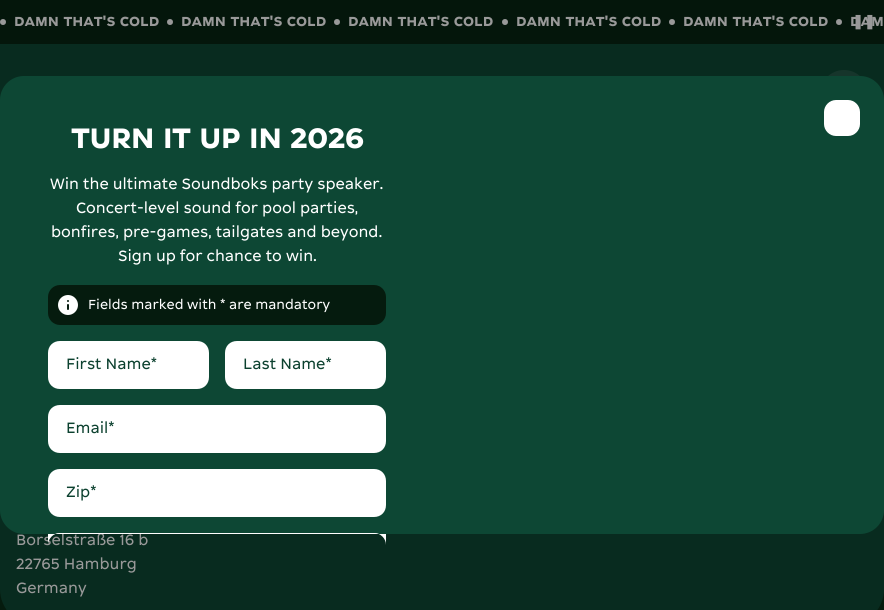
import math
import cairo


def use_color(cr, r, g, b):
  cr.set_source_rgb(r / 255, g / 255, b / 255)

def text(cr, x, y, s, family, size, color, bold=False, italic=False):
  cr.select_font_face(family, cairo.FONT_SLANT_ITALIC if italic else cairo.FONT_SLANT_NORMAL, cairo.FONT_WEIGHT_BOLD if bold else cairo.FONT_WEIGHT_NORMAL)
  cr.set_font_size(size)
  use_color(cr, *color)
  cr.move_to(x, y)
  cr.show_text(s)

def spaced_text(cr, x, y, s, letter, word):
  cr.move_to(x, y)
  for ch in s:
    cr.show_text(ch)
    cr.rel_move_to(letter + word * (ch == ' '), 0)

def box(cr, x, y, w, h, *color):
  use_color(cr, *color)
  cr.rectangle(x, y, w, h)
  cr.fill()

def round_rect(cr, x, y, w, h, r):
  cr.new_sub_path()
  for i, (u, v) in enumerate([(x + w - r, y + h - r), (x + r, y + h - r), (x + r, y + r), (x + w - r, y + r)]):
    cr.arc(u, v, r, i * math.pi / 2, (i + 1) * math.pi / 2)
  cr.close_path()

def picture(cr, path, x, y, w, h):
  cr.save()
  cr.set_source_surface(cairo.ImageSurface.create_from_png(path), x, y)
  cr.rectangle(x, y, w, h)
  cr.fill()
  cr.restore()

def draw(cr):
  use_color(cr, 8, 43, 31)
  cr.paint()
  box(cr, 0, 589, 884, 21, 5, 27, 14)
  box(cr, 0, 0, 884, 44, 4, 22, 11)
  use_color(cr, 153, 153, 153)
  cr.arc(3, 22, 3, 0, 2 * math.pi)
  cr.fill()
  cr.arc(170, 22, 3, 0, 2 * math.pi)
  cr.fill()
  cr.arc(337, 22, 3, 0, 2 * math.pi)
  cr.fill()
  cr.arc(505, 22, 3, 0, 2 * math.pi)
  cr.fill()
  cr.arc(672, 22, 3, 0, 2 * math.pi)
  cr.fill()
  cr.arc(839, 22, 3, 0, 2 * math.pi)
  cr.fill()
  use_color(cr, 22, 53, 43)
  cr.arc(844, 94, 24, 0, 2 * math.pi)
  cr.fill()
  use_color(cr, 8, 43, 31)
  cr.new_path()
  cr.move_to(0, 144)
  cr.line_to(884, 144)
  cr.line_to(884, 589)
  cr.curve_to(884, 609, 868, 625, 848, 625)
  cr.line_to(36, 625)
  cr.curve_to(16, 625, 0, 609, 0, 589)
  cr.close_path()
  cr.fill()
  text(cr, 14, 26, "DAMN THAT'S COLD", "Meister", 14, (153, 153, 153), bold=True)
  text(cr, 181, 26, "DAMN THAT'S COLD", "Meister", 14, (153, 153, 153), bold=True)
  text(cr, 348, 26, "DAMN THAT'S COLD", "Meister", 14, (153, 153, 153), bold=True)
  text(cr, 516, 26, "DAMN THAT'S COLD", "Meister", 14, (153, 153, 153), bold=True)
  text(cr, 683, 26, "DAMN THAT'S COLD", "Meister", 14, (153, 153, 153), bold=True)
  text(cr, 850, 26, "DAM", "Meister", 14, (153, 153, 153), bold=True)
  text(cr, 852, 26, "❚❚", "DejaVu Sans", 14, (153, 153, 153), bold=True)
  text(cr, 16, 545, "Borselstraße 16 b", "Meister", 16, (153, 153, 153))
  use_color(cr, 13, 71, 52)
  round_rect(cr, 0, 76, 884, 458, 24)
  cr.fill()
  use_color(cr, 255, 255, 255)
  cr.new_path()
  cr.move_to(60, 533)
  cr.line_to(374, 533)
  cr.curve_to(380.5, 533, 386, 538.5, 386, 545)
  cr.line_to(386, 534)
  cr.line_to(48, 534)
  cr.line_to(48, 545)
  cr.curve_to(48, 538.5, 53.5, 533, 60, 533)
  cr.close_path()
  cr.fill()
  cr.new_path()
  cr.move_to(60, 533)
  cr.line_to(55, 534)
  cr.line_to(379, 534)
  cr.line_to(374, 533)
  cr.close_path()
  cr.fill()
  cr.new_path()
  cr.move_to(60, 469)
  cr.line_to(374, 469)
  cr.curve_to(381, 469, 386, 474, 386, 481)
  cr.line_to(386, 505)
  cr.curve_to(386, 512, 381, 517, 374, 517)
  cr.line_to(60, 517)
  cr.curve_to(53, 517, 48, 512, 48, 505)
  cr.line_to(48, 481)
  cr.curve_to(48, 474, 53, 469, 60, 469)
  cr.close_path()
  cr.fill()
  text(cr, 66, 497, "Zip*", "Meister", 16, (12, 65, 47))
  use_color(cr, 255, 255, 255)
  cr.new_path()
  cr.move_to(60, 405)
  cr.line_to(374, 405)
  cr.curve_to(381, 405, 386, 410, 386, 417)
  cr.line_to(386, 441)
  cr.curve_to(386, 448, 381, 453, 374, 453)
  cr.line_to(60, 453)
  cr.curve_to(53, 453, 48, 448, 48, 441)
  cr.line_to(48, 417)
  cr.curve_to(48, 410, 53, 405, 60, 405)
  cr.close_path()
  cr.fill()
  text(cr, 66, 433, "Email*", "Meister", 16, (12, 65, 47))
  use_color(cr, 255, 255, 255)
  cr.new_path()
  cr.move_to(237, 341)
  cr.line_to(374, 341)
  cr.curve_to(381, 341, 386, 346, 386, 353)
  cr.line_to(386, 377)
  cr.curve_to(386, 384, 381, 389, 374, 389)
  cr.line_to(237, 389)
  cr.curve_to(230, 389, 225, 384, 225, 377)
  cr.line_to(225, 353)
  cr.curve_to(225, 346, 230, 341, 237, 341)
  cr.close_path()
  cr.fill()
  text(cr, 243, 369, "Last Name*", "Meister", 16, (12, 65, 47))
  use_color(cr, 255, 255, 255)
  cr.new_path()
  cr.move_to(60, 341)
  cr.line_to(197, 341)
  cr.curve_to(204, 341, 209, 346, 209, 353)
  cr.line_to(209, 377)
  cr.curve_to(209, 384, 204, 389, 197, 389)
  cr.line_to(60, 389)
  cr.curve_to(53, 389, 48, 384, 48, 377)
  cr.line_to(48, 353)
  cr.curve_to(48, 346, 53, 341, 60, 341)
  cr.close_path()
  cr.fill()
  text(cr, 66, 369, "First Name*", "Meister", 16, (12, 65, 47))
  use_color(cr, 5, 27, 14)
  round_rect(cr, 48, 285, 338, 40, 12)
  cr.fill()
  picture(cr, "img_01.png", 58, 295, 20, 20)
  text(cr, 88, 309, "Fields marked with * are mandatory", "Meister", 14, (255, 255, 255))
  text(cr, 118, 261, "Sign up for chance to win.", "Meister", 16, (255, 255, 255))
  text(cr, 51, 237, "bonfires, pre-games, tailgates and beyond.", "Meister", 16, (255, 255, 255))
  text(cr, 76, 213, "Concert-level sound for pool parties,", "Meister", 16, (255, 255, 255))
  text(cr, 50, 189, "Win the ultimate Soundboks party speaker.", "Meister", 16, (255, 255, 255))
  cr.select_font_face("Meister", cairo.FONT_SLANT_NORMAL, cairo.FONT_WEIGHT_BOLD)
  cr.set_font_size(30)
  spaced_text(cr, 71, 148, "TURN IT UP IN 2026", -0.75, 0)
  cr.new_path()
  cr.move_to(836, 100)
  cr.line_to(848, 100)
  cr.curve_to(854.5, 100, 860, 105.5, 860, 112)
  cr.line_to(860, 124)
  cr.curve_to(860, 130.5, 854.5, 136, 848, 136)
  cr.line_to(836, 136)
  cr.curve_to(829.5, 136, 824, 130.5, 824, 124)
  cr.line_to(824, 112)
  cr.curve_to(824, 105.5, 829.5, 100, 836, 100)
  cr.close_path()
  cr.fill()
  text(cr, 16, 569, "22765 Hamburg", "Meister", 16, (153, 153, 153))
  text(cr, 16, 593, "Germany", "Meister", 16, (153, 153, 153))


surface = cairo.ImageSurface(cairo.FORMAT_RGB24, 884, 610)
cr = cairo.Context(surface)
options = cairo.FontOptions()
options.set_hint_metrics(cairo.HINT_METRICS_OFF)
options.set_hint_style(cairo.HINT_STYLE_NONE)
cr.set_font_options(options)
cr.set_miter_limit(4)
draw(cr)
surface.write_to_png("out.png")
